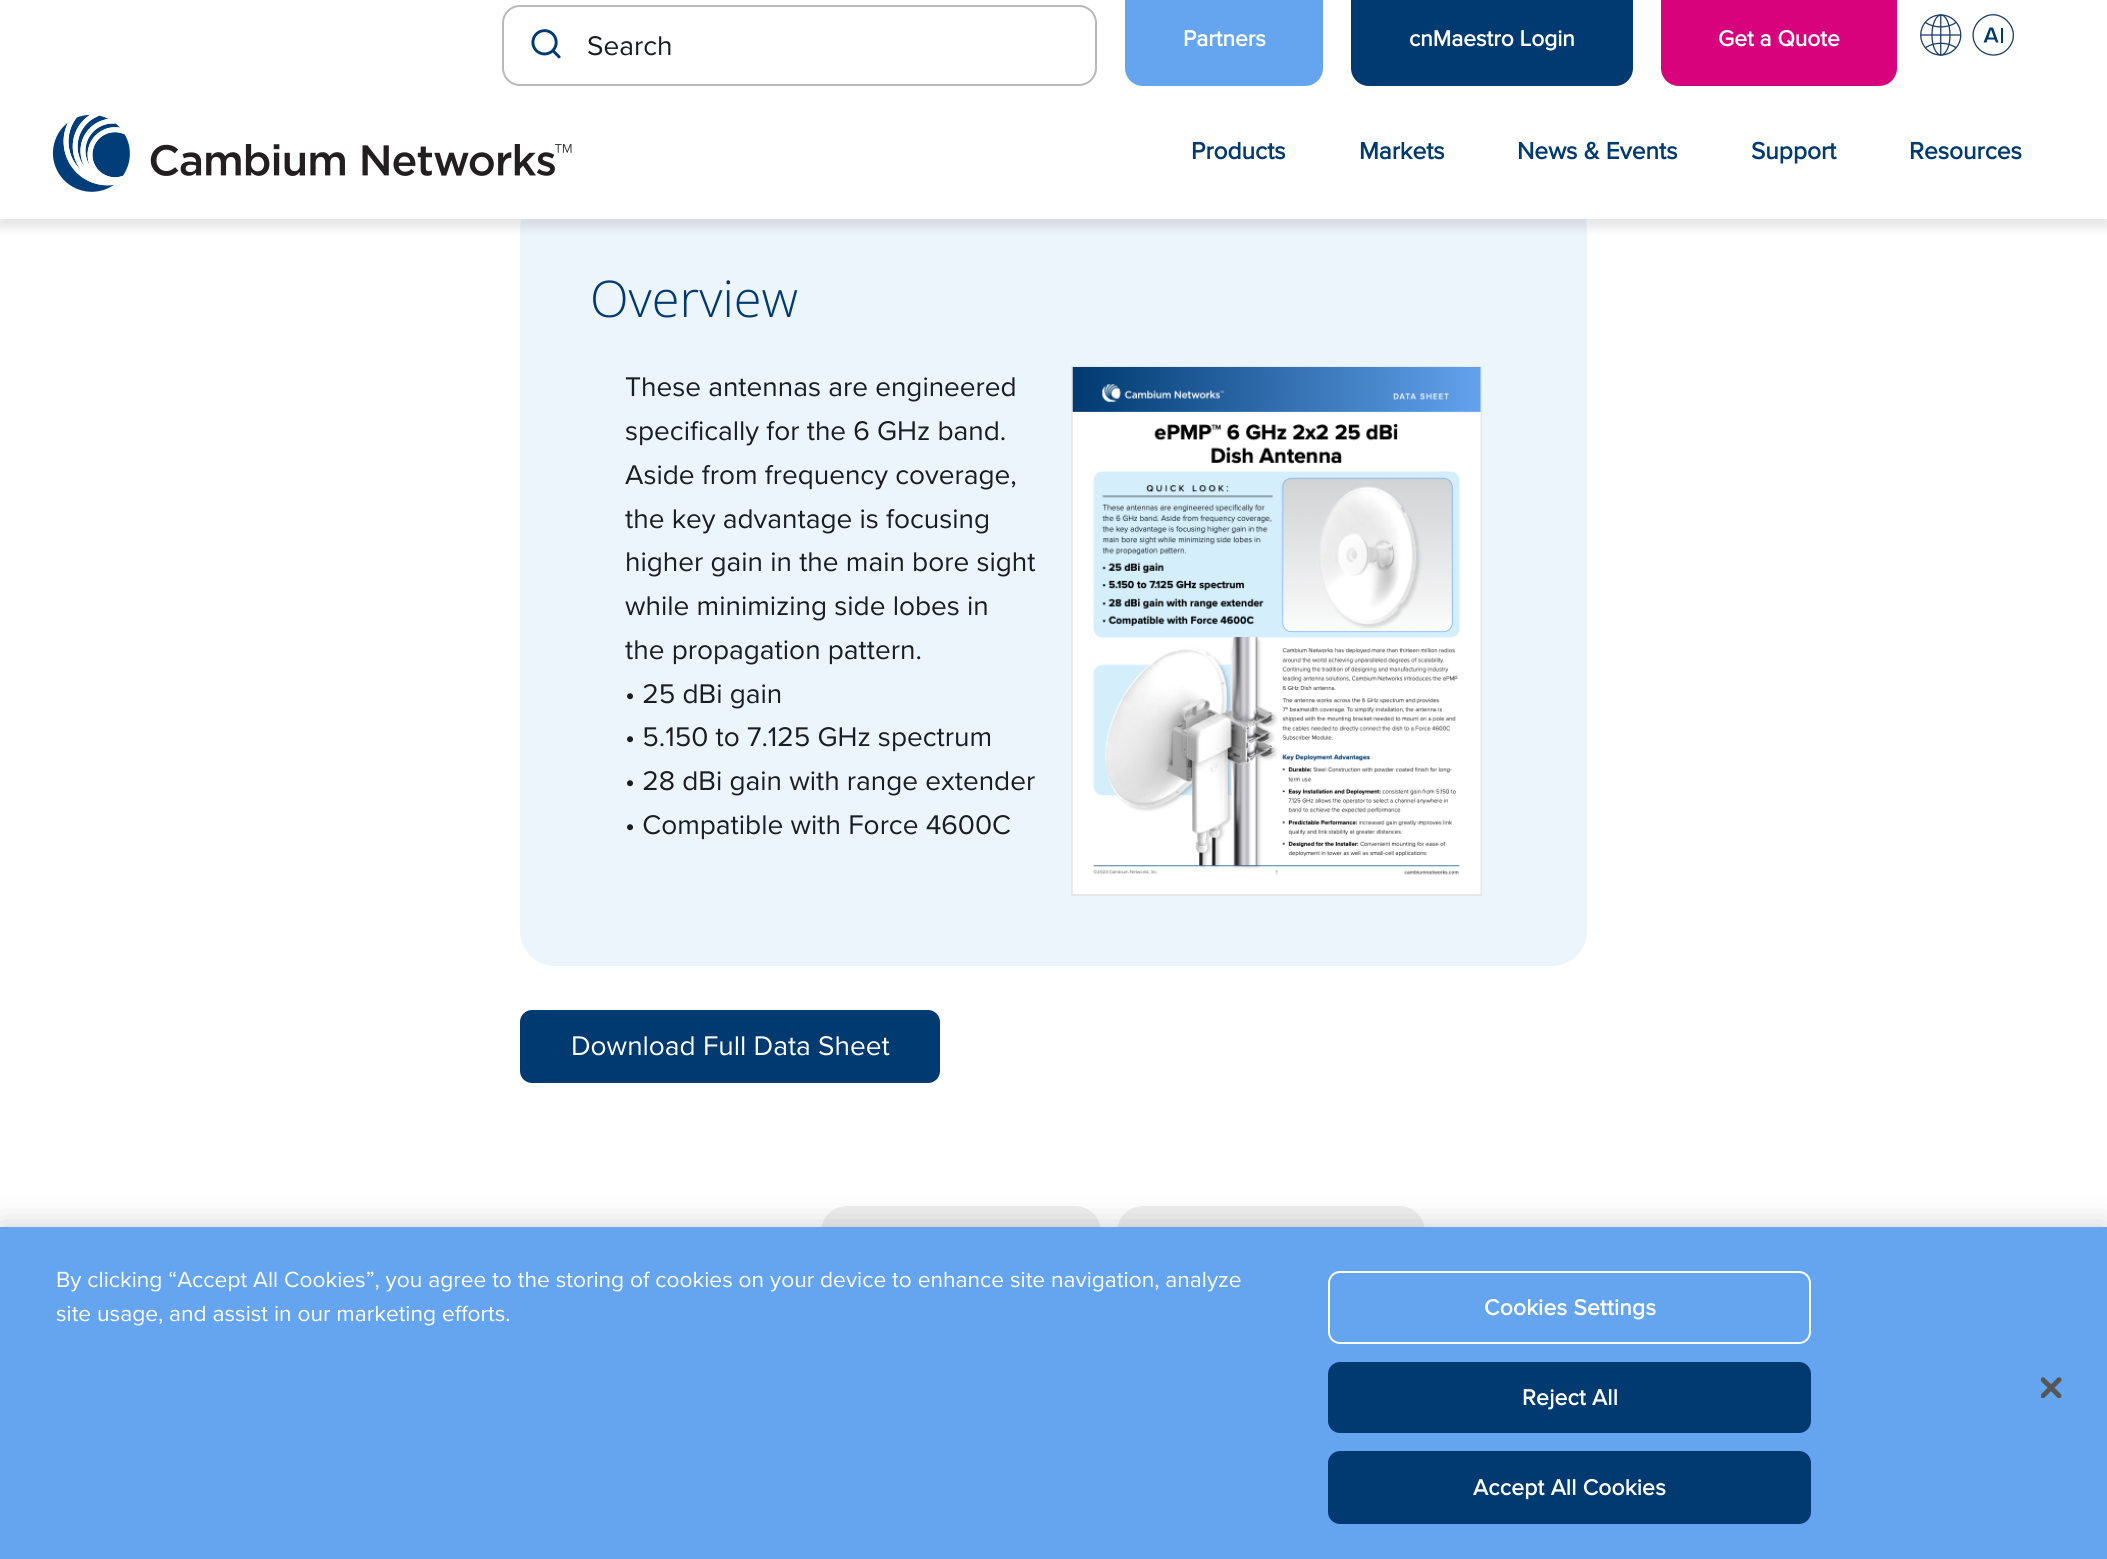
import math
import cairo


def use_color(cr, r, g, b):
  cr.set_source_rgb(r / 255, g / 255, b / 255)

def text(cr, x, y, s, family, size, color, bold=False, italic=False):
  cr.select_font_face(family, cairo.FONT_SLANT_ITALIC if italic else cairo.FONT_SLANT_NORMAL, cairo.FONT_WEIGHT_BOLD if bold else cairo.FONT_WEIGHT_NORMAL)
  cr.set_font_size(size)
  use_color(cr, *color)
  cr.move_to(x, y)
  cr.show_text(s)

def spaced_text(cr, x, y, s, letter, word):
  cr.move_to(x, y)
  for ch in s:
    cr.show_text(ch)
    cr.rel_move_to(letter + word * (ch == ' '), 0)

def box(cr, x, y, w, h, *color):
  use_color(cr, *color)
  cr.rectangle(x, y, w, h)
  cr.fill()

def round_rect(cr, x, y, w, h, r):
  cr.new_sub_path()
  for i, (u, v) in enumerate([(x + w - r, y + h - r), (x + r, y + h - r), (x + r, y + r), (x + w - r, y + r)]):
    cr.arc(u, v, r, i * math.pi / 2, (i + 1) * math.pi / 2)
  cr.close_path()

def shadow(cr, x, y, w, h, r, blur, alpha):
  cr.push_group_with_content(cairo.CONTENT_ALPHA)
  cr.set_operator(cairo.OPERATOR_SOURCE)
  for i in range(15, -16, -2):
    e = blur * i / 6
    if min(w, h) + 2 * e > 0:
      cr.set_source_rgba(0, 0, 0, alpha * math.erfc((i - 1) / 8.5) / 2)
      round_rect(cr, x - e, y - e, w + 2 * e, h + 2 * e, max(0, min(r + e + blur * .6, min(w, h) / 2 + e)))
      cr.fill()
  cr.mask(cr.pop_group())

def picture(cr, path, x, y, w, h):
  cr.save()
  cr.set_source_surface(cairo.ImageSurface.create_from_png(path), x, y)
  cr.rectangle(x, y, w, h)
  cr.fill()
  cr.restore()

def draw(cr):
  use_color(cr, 255, 255, 255)
  cr.paint()
  use_color(cr, 236, 244, 252)
  round_rect(cr, 520, 194, 1067, 772, 35)
  cr.fill()
  use_color(cr, 0, 0, 0)
  shadow(cr, -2, 5, 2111, 223, 0, 5, 0.1)
  box(cr, 0, 0, 2107, 219, 255, 255, 255)
  round_rect(cr, 503, 6, 593, 79, 17)
  use_color(cr, 185, 185, 185)
  cr.stroke()
  picture(cr, "img_01.png", 531, 29, 30, 30)
  use_color(cr, 101, 164, 239)
  cr.new_path()
  cr.move_to(1125, 0)
  cr.line_to(1323, 0)
  cr.line_to(1323, 68)
  cr.curve_to(1323, 78, 1315, 86, 1305, 86)
  cr.line_to(1143, 86)
  cr.curve_to(1133, 86, 1125, 78, 1125, 68)
  cr.close_path()
  cr.fill()
  use_color(cr, 0, 58, 112)
  cr.new_path()
  cr.move_to(1351, 0)
  cr.line_to(1633, 0)
  cr.line_to(1633, 68)
  cr.curve_to(1633, 78, 1625, 86, 1615, 86)
  cr.line_to(1369, 86)
  cr.curve_to(1359, 86, 1351, 78, 1351, 68)
  cr.close_path()
  cr.fill()
  use_color(cr, 217, 2, 125)
  cr.new_path()
  cr.move_to(1661, 0)
  cr.line_to(1897, 0)
  cr.line_to(1897, 68)
  cr.curve_to(1897, 78, 1889, 86, 1879, 86)
  cr.line_to(1679, 86)
  cr.curve_to(1669, 86, 1661, 78, 1661, 68)
  cr.close_path()
  cr.fill()
  picture(cr, "img_02.png", 1920, 14, 42, 42)
  cr.new_path()
  cr.move_to(2008.5, 48)
  cr.curve_to(1995.5, 63.5, 1969.5, 51.5, 1973.5, 31)
  cr.curve_to(1974.5, 27, 1976.5, 23.5, 1979, 21)
  cr.curve_to(1997.5, 2.5, 2024.5, 29, 2008.5, 48)
  use_color(cr, 28, 61, 110)
  cr.set_line_width(1.3)
  cr.stroke()
  use_color(cr, 0, 58, 112)
  cr.new_path()
  cr.move_to(1996, 42.5)
  cr.line_to(1994.5, 39.5)
  cr.line_to(1987.5, 39.5)
  cr.line_to(1986.5, 42.5)
  cr.line_to(1983.5, 42.5)
  cr.line_to(1989.5, 27.5)
  cr.line_to(1993, 27.5)
  cr.line_to(1998.5, 42.5)
  cr.close_path()
  cr.move_to(1991, 29.5)
  cr.line_to(1988.5, 37.5)
  cr.line_to(1994, 37.5)
  cr.close_path()
  cr.fill()
  box(cr, 2001, 28, 2, 15, 0, 58, 112)
  picture(cr, "img_03.png", 52, 114, 520, 78)
  cr.rectangle(1072, 367, 409, 528)
  use_color(cr, 231, 231, 231)
  cr.set_line_width(2)
  cr.stroke()
  picture(cr, "img_04.png", 1072, 367, 409, 527)
  use_color(cr, 0, 58, 112)
  round_rect(cr, 520, 1010, 420, 73, 12)
  cr.fill()
  use_color(cr, 238, 238, 238)
  round_rect(cr, 821, 1206, 280, 52, 26)
  cr.fill()
  round_rect(cr, 1117, 1206, 308, 52, 26)
  cr.fill()
  use_color(cr, 0, 0, 0)
  shadow(cr, 0, 1227, 2107, 332, 0, 16, 0.2)
  box(cr, 0, 1227, 2107, 332, 101, 164, 239)
  round_rect(cr, 1329, 1272, 481, 71, 11)
  use_color(cr, 255, 255, 255)
  cr.stroke()
  use_color(cr, 0, 58, 112)
  round_rect(cr, 1329, 1363, 481, 69, 11)
  cr.fill_preserve()
  cr.stroke()
  round_rect(cr, 1329, 1452, 481, 71, 11)
  cr.fill_preserve()
  cr.stroke()
  picture(cr, "img_05.png", 2041, 1377, 21, 21)
  text(cr, 587, 55, "Search", "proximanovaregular", 28, (27, 30, 33))
  text(cr, 1183, 46, "Partners", "proximanovaregular", 22.75, (255, 255, 255), bold=True)
  text(cr, 1409, 46, "cnMaestro Login", "proximanovaregular", 22.75, (255, 255, 255), bold=True)
  text(cr, 1718, 46, "Get a Quote", "proximanovaregular", 22.75, (255, 255, 255), bold=True)
  text(cr, 1191, 159, "Products", "proximanovaregular", 24.5, (0, 58, 112), bold=True)
  text(cr, 1359, 159, "Markets", "proximanovaregular", 24.5, (0, 58, 112), bold=True)
  text(cr, 1517, 159, "News & Events", "proximanovaregular", 24.5, (0, 58, 112), bold=True)
  text(cr, 1751, 159, "Support", "proximanovaregular", 24.5, (0, 58, 112), bold=True)
  text(cr, 1909, 159, "Resources", "proximanovaregular", 24.5, (0, 58, 112), bold=True)
  text(cr, 590, 317, "Overview", "Open Sans Light", 50.5, (0, 58, 112))
  text(cr, 625, 396, "These antennas are engineered", "proximanovaregular", 28, (27, 30, 33))
  text(cr, 625, 440, "specifically for the 6 GHz band.", "proximanovaregular", 28, (27, 30, 33))
  text(cr, 625, 484, "Aside from frequency coverage,", "proximanovaregular", 28, (27, 30, 33))
  text(cr, 625, 528, "the key advantage is focusing", "proximanovaregular", 28, (27, 30, 33))
  text(cr, 625, 571, "higher gain in the main bore sight", "proximanovaregular", 28, (27, 30, 33))
  text(cr, 625, 615, "while minimizing side lobes in", "proximanovaregular", 28, (27, 30, 33))
  text(cr, 625, 659, "the propagation pattern.", "proximanovaregular", 28, (27, 30, 33))
  text(cr, 625, 703, "• 25 dBi gain", "proximanovaregular", 28, (27, 30, 33))
  text(cr, 625, 746, "• 5.150 to 7.125 GHz spectrum", "proximanovaregular", 28, (27, 30, 33))
  text(cr, 625, 790, "• 28 dBi gain with range extender", "proximanovaregular", 28, (27, 30, 33))
  text(cr, 625, 834, "• Compatible with Force 4600C", "proximanovaregular", 28, (27, 30, 33))
  text(cr, 571, 1055, "Download Full Data Sheet", "proximanovaregular", 28, (255, 255, 255))
  text(cr, 56, 1287, "By clicking “Accept All Cookies”, you agree to the storing of cookies on your device to enhance site navigation, analyze", "proximanovaregular", 22.75, (255, 255, 255))
  text(cr, 56, 1321, "site usage, and assist in our marketing efforts.", "proximanovaregular", 22.75, (255, 255, 255))
  cr.select_font_face("proximanovaregular", cairo.FONT_SLANT_NORMAL, cairo.FONT_WEIGHT_BOLD)
  spaced_text(cr, 1484, 1315, "Cookies Settings", 0.25, 0)
  spaced_text(cr, 1522, 1405, "Reject All", 0.25, 0)
  spaced_text(cr, 1473, 1495, "Accept All Cookies", 0.25, 0)


surface = cairo.ImageSurface(cairo.FORMAT_RGB24, 2107, 1559)
cr = cairo.Context(surface)
options = cairo.FontOptions()
options.set_hint_metrics(cairo.HINT_METRICS_OFF)
options.set_hint_style(cairo.HINT_STYLE_NONE)
cr.set_font_options(options)
cr.set_miter_limit(4)
draw(cr)
surface.write_to_png("out.png")
